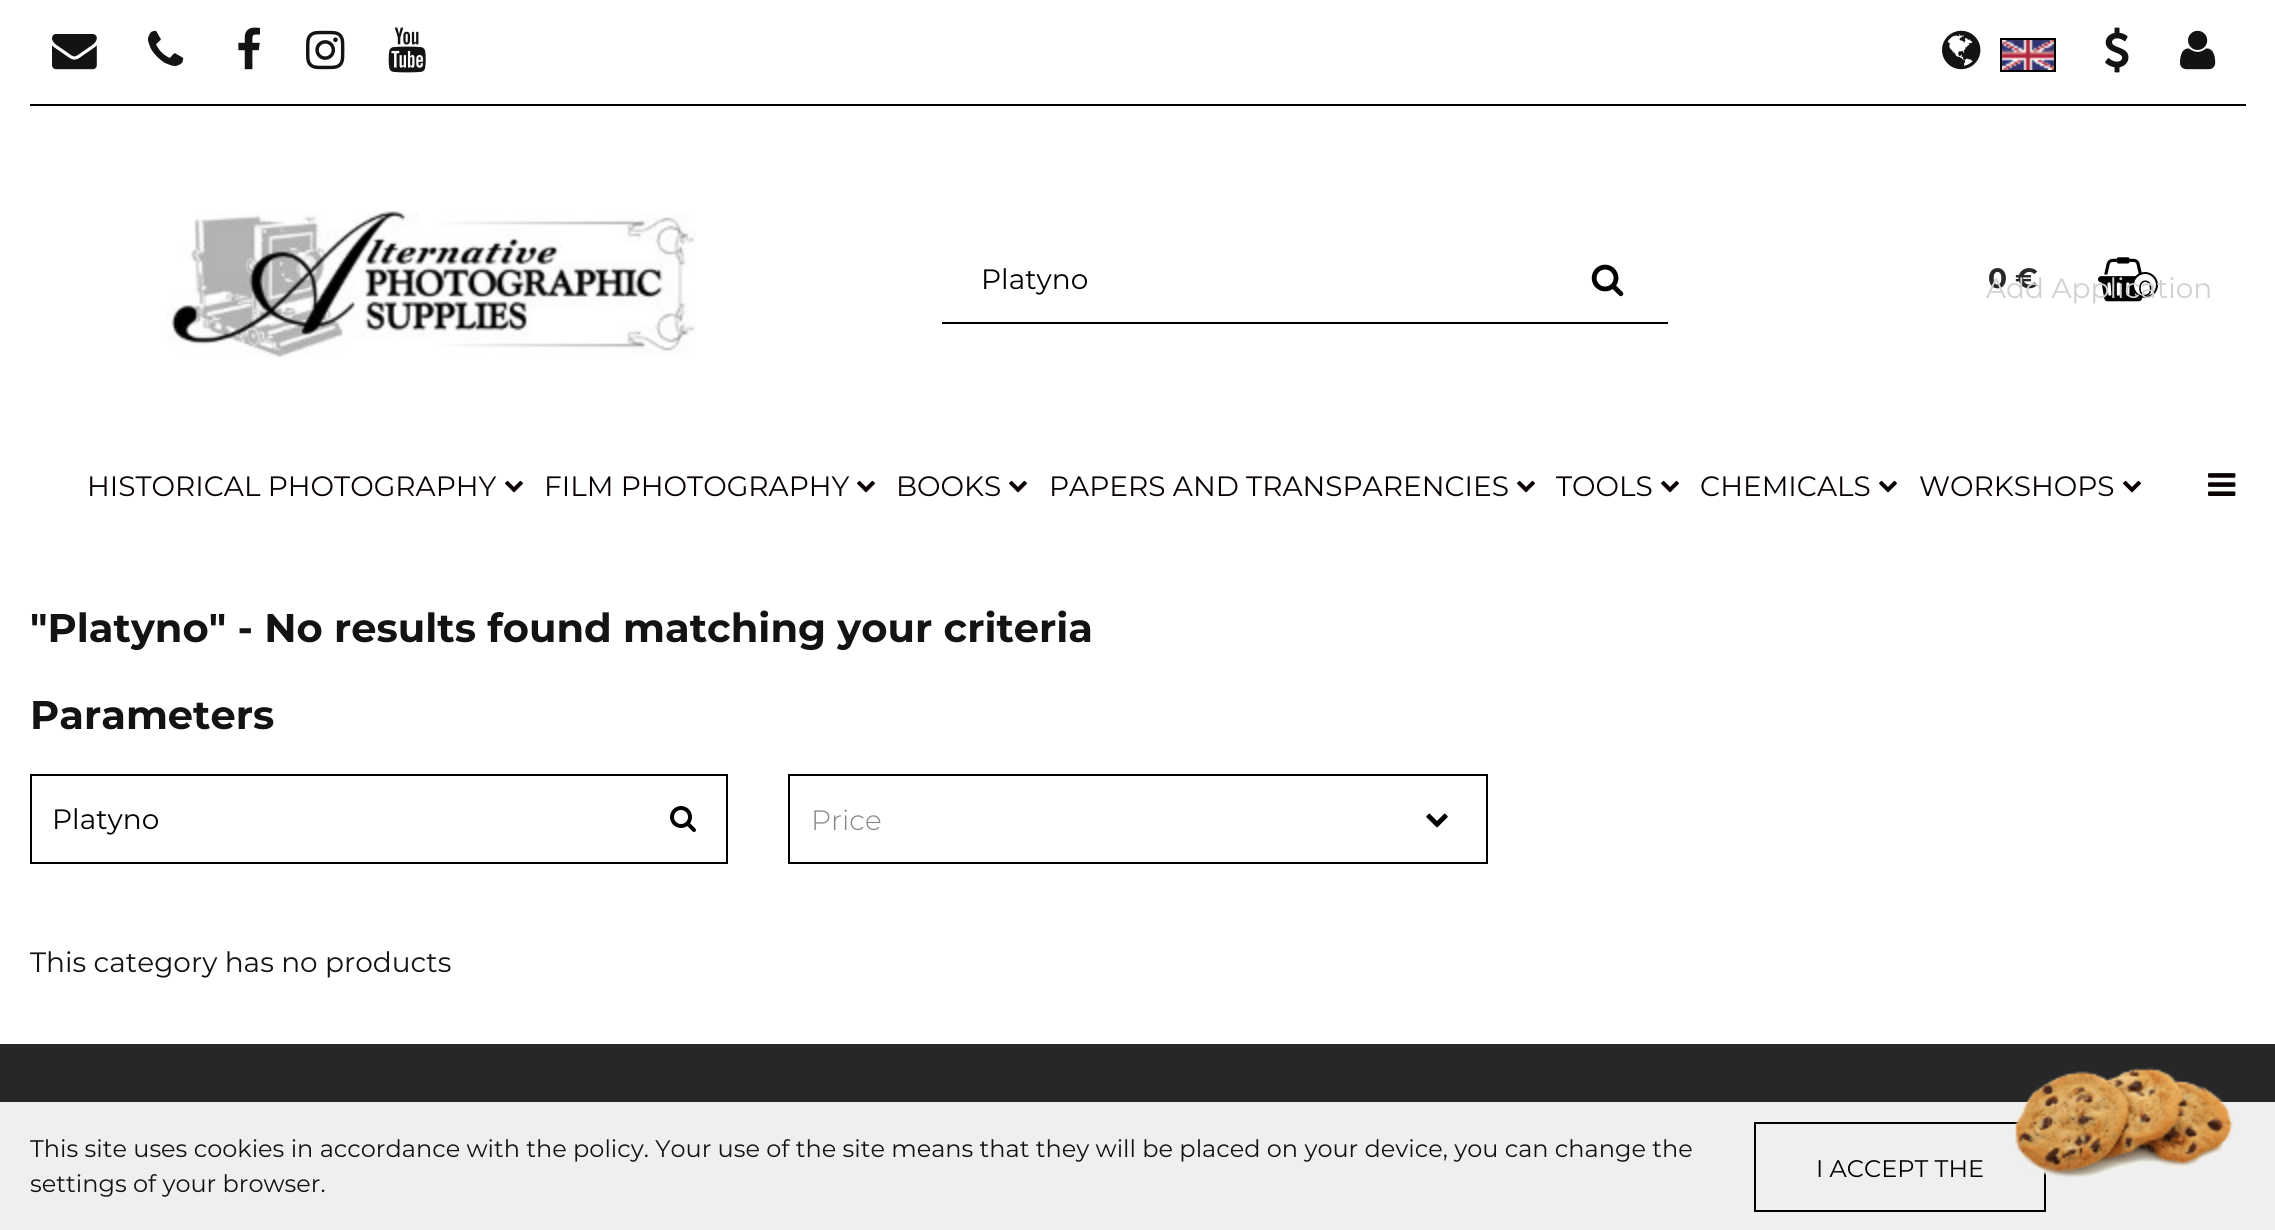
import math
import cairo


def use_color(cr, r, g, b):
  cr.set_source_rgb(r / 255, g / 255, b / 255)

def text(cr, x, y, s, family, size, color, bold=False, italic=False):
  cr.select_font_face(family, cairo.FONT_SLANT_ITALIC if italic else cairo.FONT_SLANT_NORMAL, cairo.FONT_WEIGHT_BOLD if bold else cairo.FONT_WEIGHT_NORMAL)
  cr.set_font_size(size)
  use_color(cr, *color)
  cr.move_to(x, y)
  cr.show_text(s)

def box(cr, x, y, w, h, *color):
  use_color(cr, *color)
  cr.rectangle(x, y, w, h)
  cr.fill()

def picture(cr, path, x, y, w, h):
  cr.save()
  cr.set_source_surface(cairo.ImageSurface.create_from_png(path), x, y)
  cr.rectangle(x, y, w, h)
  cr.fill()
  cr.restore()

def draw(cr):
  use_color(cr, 255, 255, 255)
  cr.paint()
  picture(cr, "img_01.png", 166, 211, 530, 148)
  box(cr, 942, 322, 726, 2, 0, 0, 0)
  picture(cr, "img_02.png", 1591, 264, 33, 33)
  picture(cr, "img_03.png", 2098, 257, 45, 45)
  use_color(cr, 255, 255, 255)
  cr.arc(2145, 285, 12, 0, 2 * math.pi)
  cr.fill_preserve()
  use_color(cr, 0, 0, 0)
  cr.stroke()
  box(cr, 30, 104, 2216, 2, 0, 0, 0)
  picture(cr, "img_04.png", 52, 34, 45, 36)
  picture(cr, "img_05.png", 148, 30, 36, 36)
  picture(cr, "img_06.png", 238, 27, 22, 43)
  picture(cr, "img_07.png", 306, 30, 39, 40)
  picture(cr, "img_08.png", 388, 27, 38, 46)
  picture(cr, "img_09.png", 1942, 30, 39, 40)
  cr.rectangle(2001, 39, 54, 32)
  cr.stroke()
  picture(cr, "img_10.png", 2002, 40, 52, 30)
  picture(cr, "img_11.png", 2105, 27, 24, 46)
  picture(cr, "img_12.png", 2180, 30, 36, 40)
  picture(cr, "img_13.png", 505, 480, 18, 13)
  picture(cr, "img_13.png", 857, 480, 18, 13)
  picture(cr, "img_13.png", 1009, 480, 18, 13)
  picture(cr, "img_13.png", 1517, 480, 18, 13)
  picture(cr, "img_13.png", 1661, 480, 18, 13)
  picture(cr, "img_13.png", 1879, 480, 18, 13)
  picture(cr, "img_13.png", 2123, 480, 18, 13)
  picture(cr, "img_14.png", 2208, 473, 28, 23)
  cr.rectangle(31, 775, 696, 88)
  cr.stroke()
  picture(cr, "img_15.png", 670, 806, 26, 26)
  cr.rectangle(789, 775, 698, 88)
  cr.stroke()
  picture(cr, "img_16.png", 1426, 813, 22, 15)
  box(cr, 0, 1044, 2275, 58, 39, 39, 39)
  box(cr, 0, 1102, 2275, 128, 239, 239, 239)
  cr.rectangle(1755, 1123, 290, 88)
  use_color(cr, 0, 0, 0)
  cr.stroke()
  picture(cr, "img_17.png", 2015, 1067, 218, 111)
  text(cr, 981, 289, "Platyno", "Montserrat", 28, (0, 0, 0))
  text(cr, 1988, 288, "0 €", "Montserrat", 28, (39, 39, 39), bold=True)
  text(cr, 2138, 296, "0", "Montserrat", 22, (0, 0, 0))
  text(cr, 1986, 298, "Add Application", "Montserrat", 28, (208, 208, 208))
  text(cr, 87, 496, "HISTORICAL PHOTOGRAPHY", "Montserrat", 28, (10, 1, 1))
  text(cr, 544, 496, "FILM PHOTOGRAPHY", "Montserrat", 28, (10, 1, 1))
  text(cr, 896, 496, "BOOKS", "Montserrat", 28, (10, 1, 1))
  text(cr, 1049, 496, "PAPERS AND TRANSPARENCIES", "Montserrat", 28, (10, 1, 1))
  text(cr, 1556, 496, "TOOLS", "Montserrat", 28, (10, 1, 1))
  text(cr, 1700, 496, "CHEMICALS", "Montserrat", 28, (10, 1, 1))
  text(cr, 1919, 496, "WORKSHOPS", "Montserrat", 28, (10, 1, 1))
  text(cr, 30, 642, "\"Platyno\" - No results found matching your criteria", "Montserrat", 40, (19, 19, 19), bold=True)
  text(cr, 30, 729, "Parameters", "Montserrat", 40, (19, 19, 19), bold=True)
  text(cr, 52, 829, "Platyno", "Montserrat", 28, (0, 0, 0))
  text(cr, 811, 830, "Price", "Montserrat Light", 28, (133, 133, 133))
  text(cr, 30, 972, "This category has no products", "Montserrat", 28, (19, 19, 19))
  text(cr, 30, 1157, "This site uses cookies in accordance with the policy. Your use of the site means that they will be placed on your device, you can change the", "Montserrat", 24, (19, 19, 19))
  text(cr, 30, 1192, "settings of your browser.", "Montserrat", 24, (19, 19, 19))
  text(cr, 1816, 1177, "I ACCEPT THE", "Montserrat", 24, (0, 0, 0))


surface = cairo.ImageSurface(cairo.FORMAT_RGB24, 2275, 1230)
cr = cairo.Context(surface)
options = cairo.FontOptions()
options.set_hint_metrics(cairo.HINT_METRICS_OFF)
options.set_hint_style(cairo.HINT_STYLE_NONE)
cr.set_font_options(options)
cr.set_miter_limit(4)
draw(cr)
surface.write_to_png("out.png")
